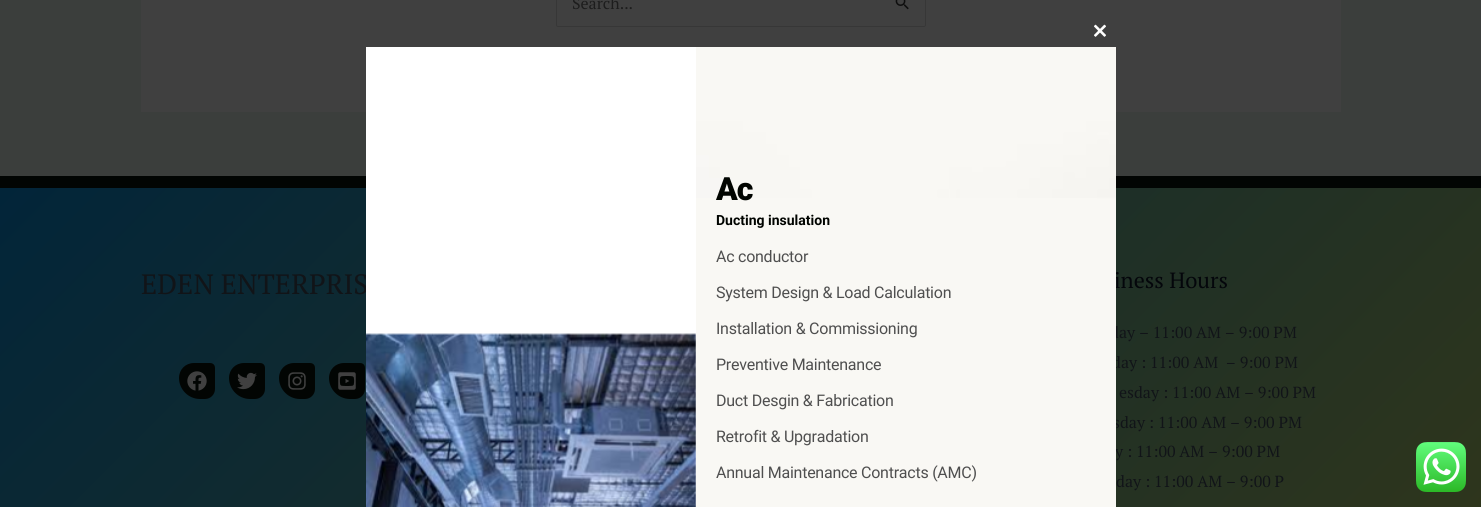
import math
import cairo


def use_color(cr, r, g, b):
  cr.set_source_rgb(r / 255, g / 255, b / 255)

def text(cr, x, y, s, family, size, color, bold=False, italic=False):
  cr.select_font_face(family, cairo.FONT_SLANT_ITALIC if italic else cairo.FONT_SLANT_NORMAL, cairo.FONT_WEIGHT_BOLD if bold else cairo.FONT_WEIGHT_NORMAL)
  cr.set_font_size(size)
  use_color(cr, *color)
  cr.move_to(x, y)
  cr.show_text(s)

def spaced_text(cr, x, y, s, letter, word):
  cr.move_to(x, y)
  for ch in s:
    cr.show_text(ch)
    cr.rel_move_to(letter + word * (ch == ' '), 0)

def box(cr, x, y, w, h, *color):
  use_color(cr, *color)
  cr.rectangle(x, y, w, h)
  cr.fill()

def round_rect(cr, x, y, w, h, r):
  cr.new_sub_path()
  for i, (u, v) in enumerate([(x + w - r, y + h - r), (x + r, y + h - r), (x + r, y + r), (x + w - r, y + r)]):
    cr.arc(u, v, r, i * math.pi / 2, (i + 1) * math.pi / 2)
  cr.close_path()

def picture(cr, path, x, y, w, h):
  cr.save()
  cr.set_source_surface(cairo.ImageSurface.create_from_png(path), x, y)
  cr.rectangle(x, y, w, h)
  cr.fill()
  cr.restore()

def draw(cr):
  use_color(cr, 59, 62, 60)
  cr.paint()
  box(cr, 141, 0, 1200, 112, 64, 64, 64)
  round_rect(cr, 556.5, -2.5, 369, 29, 1.5)
  use_color(cr, 55, 55, 55)
  cr.set_line_width(1)
  cr.stroke()
  picture(cr, "img_01.png", 895, 0, 14, 10)
  gradient = cairo.LinearGradient(270, -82, 1211, 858)
  gradient.add_color_stop_rgba(0, 0.008, 0.145, 0.224, 1)
  gradient.add_color_stop_rgba(1, 0.188, 0.212, 0.106, 1)
  cr.set_source(gradient)
  cr.rectangle(0, 188, 1481, 319)
  cr.fill()
  box(cr, 0, 176, 1481, 12, 2, 5, 3)
  cr.new_path()
  cr.move_to(194, 363)
  cr.line_to(210, 363)
  cr.curve_to(213, 363, 215, 365, 215, 368)
  cr.line_to(215, 389)
  cr.curve_to(215, 394.5, 210.5, 399, 205, 399)
  cr.line_to(200, 399)
  cr.curve_to(188.5, 399, 179, 389.5, 179, 378)
  cr.curve_to(179, 369.5, 185.5, 363, 194, 363)
  cr.close_path()
  cr.fill()
  picture(cr, "img_02.png", 187, 371, 20, 20)
  cr.new_path()
  cr.move_to(244, 363)
  cr.line_to(260, 363)
  cr.curve_to(263, 363, 265, 365, 265, 368)
  cr.line_to(265, 389)
  cr.curve_to(265, 394.5, 260.5, 399, 255, 399)
  cr.line_to(250, 399)
  cr.curve_to(238.5, 399, 229, 389.5, 229, 378)
  cr.curve_to(229, 369.5, 235.5, 363, 244, 363)
  cr.close_path()
  cr.fill()
  picture(cr, "img_03.png", 237, 372, 20, 18)
  cr.new_path()
  cr.move_to(294, 363)
  cr.line_to(310, 363)
  cr.curve_to(313, 363, 315, 365, 315, 368)
  cr.line_to(315, 389)
  cr.curve_to(315, 394.5, 310.5, 399, 305, 399)
  cr.line_to(300, 399)
  cr.curve_to(288.5, 399, 279, 389.5, 279, 378)
  cr.curve_to(279, 369.5, 285.5, 363, 294, 363)
  cr.close_path()
  cr.fill()
  picture(cr, "img_04.png", 288, 372, 18, 18)
  cr.new_path()
  cr.move_to(344, 363)
  cr.line_to(360, 363)
  cr.curve_to(363, 363, 365, 365, 365, 368)
  cr.line_to(365, 389)
  cr.curve_to(365, 394.5, 360.5, 399, 355, 399)
  cr.line_to(350, 399)
  cr.curve_to(338.5, 399, 329, 389.5, 329, 378)
  cr.curve_to(329, 369.5, 335.5, 363, 344, 363)
  cr.close_path()
  cr.fill()
  picture(cr, "img_05.png", 338, 372, 18, 18)
  picture(cr, "img_06.png", 1094, 24, 12, 13)
  picture(cr, "img_09.png", 1416, 442, 50, 50)
  text(cr, 572, 9, "Search...", "PT Serif", 16, (29, 29, 29))
  text(cr, 141, 294, "EDEN ENTERPRIS", "PT Serif", 28, (17, 20, 24))
  text(cr, 1114, 288, "iness Hours", "PT Serif", 22, (4, 6, 11))
  text(cr, 1110, 338, "day – 11:00 AM – 9:00 PM", "PT Serif", 16, (17, 20, 24))
  text(cr, 1112, 368, "day : 11:00 AM  – 9:00 PM", "PT Serif", 16, (17, 20, 24))
  text(cr, 1119, 398, "esday : 11:00 AM – 9:00 PM", "PT Serif", 16, (17, 20, 24))
  text(cr, 1113, 428, "sday : 11:00 AM – 9:00 PM", "PT Serif", 16, (17, 20, 24))
  text(cr, 1115, 457, "y : 11:00 AM – 9:00 PM", "PT Serif", 16, (17, 20, 24))
  text(cr, 1116, 487, "day : 11:00 AM – 9:00 P", "PT Serif", 16, (17, 20, 24))
  picture(cr, "img_07.png", 696, 47, 420, 460)
  box(cr, 366, 47, 330, 460, 255, 255, 255)
  picture(cr, "img_08.png", 366, 333, 330, 174)
  cr.select_font_face("Roboto Black")
  cr.set_font_size(32)
  use_color(cr, 1, 4, 0)
  spaced_text(cr, 716, 200, "Ac", -1, 0)
  text(cr, 716, 225, "Ducting insulation", "Roboto", 14, (1, 4, 0), bold=True)
  cr.select_font_face("Roboto")
  cr.set_font_size(16)
  use_color(cr, 79, 79, 79)
  spaced_text(cr, 716, 262, "Ac conductor", -0.25, 0)
  spaced_text(cr, 716, 298, "System Design & Load Calculation", -0.25, 0)
  spaced_text(cr, 716, 334, "Installation & Commissioning", -0.25, 0)
  spaced_text(cr, 716, 370, "Preventive Maintenance", -0.25, 0)
  spaced_text(cr, 716, 406, "Duct Desgin & Fabrication", -0.25, 0)
  spaced_text(cr, 716, 442, "Retrofit & Upgradation", -0.25, 0)
  spaced_text(cr, 716, 478, "Annual Maintenance Contracts (AMC)", -0.25, 0)


surface = cairo.ImageSurface(cairo.FORMAT_RGB24, 1481, 507)
cr = cairo.Context(surface)
options = cairo.FontOptions()
options.set_hint_metrics(cairo.HINT_METRICS_OFF)
options.set_hint_style(cairo.HINT_STYLE_NONE)
cr.set_font_options(options)
cr.set_miter_limit(4)
draw(cr)
surface.write_to_png("out.png")
